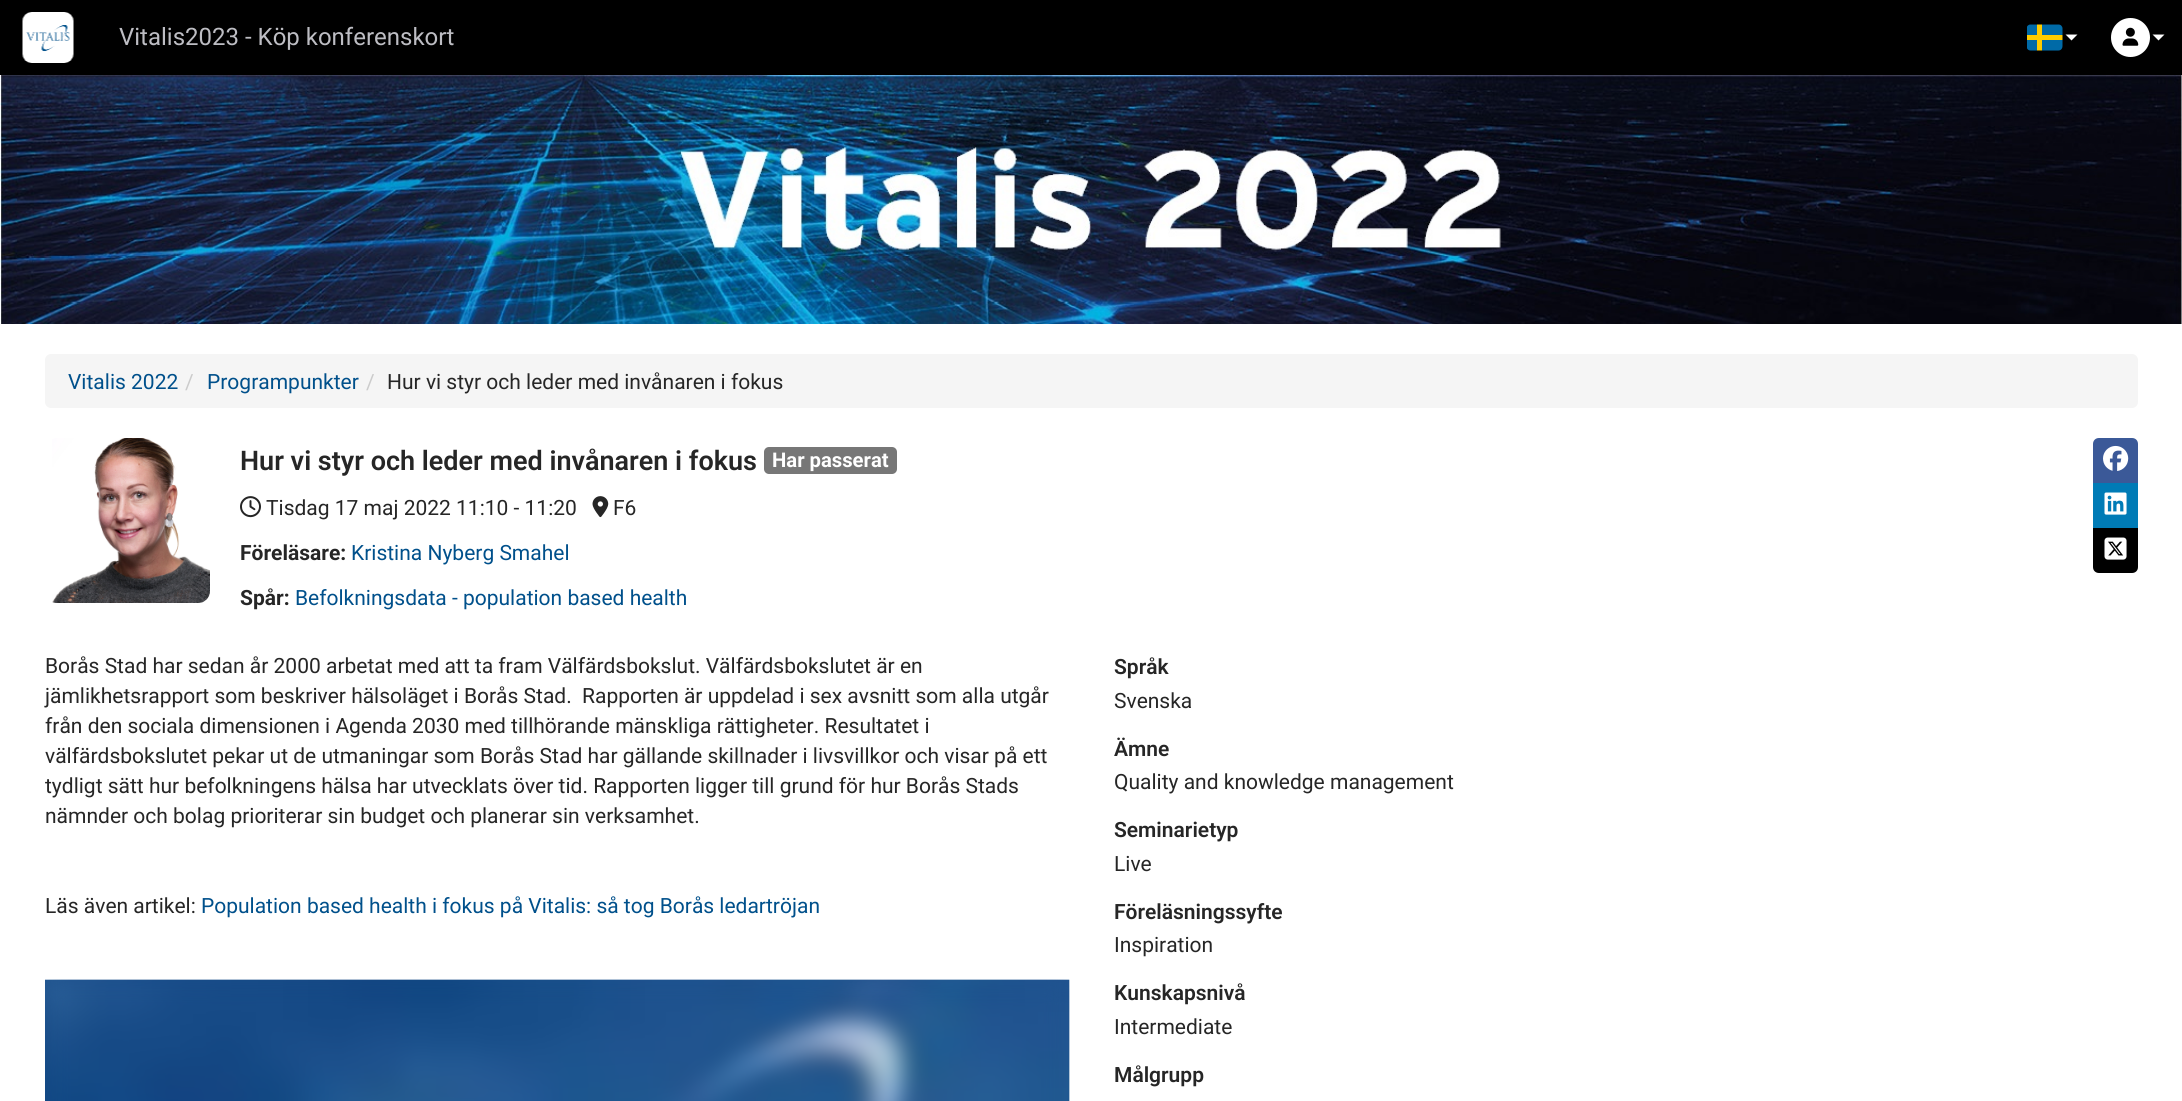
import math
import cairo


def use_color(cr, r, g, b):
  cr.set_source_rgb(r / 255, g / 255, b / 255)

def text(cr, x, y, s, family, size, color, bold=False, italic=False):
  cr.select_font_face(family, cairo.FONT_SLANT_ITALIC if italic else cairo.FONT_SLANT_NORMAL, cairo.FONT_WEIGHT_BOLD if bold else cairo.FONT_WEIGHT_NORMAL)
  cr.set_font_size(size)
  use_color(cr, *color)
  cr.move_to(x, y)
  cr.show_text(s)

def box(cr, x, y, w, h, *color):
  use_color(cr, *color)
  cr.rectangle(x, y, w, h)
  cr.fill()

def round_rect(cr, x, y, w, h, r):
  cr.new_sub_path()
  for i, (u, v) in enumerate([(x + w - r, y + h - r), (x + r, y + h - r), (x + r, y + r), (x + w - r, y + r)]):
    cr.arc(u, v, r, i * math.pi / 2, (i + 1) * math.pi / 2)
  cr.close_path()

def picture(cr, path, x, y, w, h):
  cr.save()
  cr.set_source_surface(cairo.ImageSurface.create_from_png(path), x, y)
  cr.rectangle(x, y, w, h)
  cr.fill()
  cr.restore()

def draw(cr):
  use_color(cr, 255, 255, 255)
  cr.paint()
  box(cr, 0, 0, 2182, 75, 0, 0, 0)
  picture(cr, "img_01.png", 22, 12, 52, 51)
  picture(cr, "img_02.png", 2027, 24, 36, 27)
  use_color(cr, 255, 255, 255)
  cr.new_path()
  cr.move_to(2065.5, 34.5)
  cr.line_to(2077.5, 34.5)
  cr.line_to(2071.5, 40.5)
  cr.close_path()
  cr.fill()
  cr.arc(2130.5, 37.5, 19.5, 0, 2 * math.pi)
  cr.fill()
  picture(cr, "img_03.png", 2122, 27, 17, 19)
  cr.new_path()
  cr.move_to(2152.5, 34.5)
  cr.line_to(2164.5, 34.5)
  cr.line_to(2158.5, 40.5)
  cr.close_path()
  cr.fill()
  picture(cr, "img_04.png", 0, 75, 2182, 249)
  use_color(cr, 245, 245, 245)
  round_rect(cr, 45, 354, 2093, 54, 6)
  cr.fill()
  picture(cr, "img_05.png", 52, 438, 158, 165)
  use_color(cr, 119, 119, 119)
  round_rect(cr, 764, 447, 133, 27, 5)
  cr.fill()
  use_color(cr, 59, 89, 152)
  cr.new_path()
  cr.move_to(2099, 438)
  cr.line_to(2132, 438)
  cr.curve_to(2135.5, 438, 2138, 440.5, 2138, 444)
  cr.line_to(2138, 483)
  cr.line_to(2093, 483)
  cr.line_to(2093, 444)
  cr.curve_to(2093, 440.5, 2095.5, 438, 2099, 438)
  cr.close_path()
  cr.fill()
  picture(cr, "img_06.png", 2103, 445, 26, 26)
  box(cr, 2093, 483, 45, 45, 0, 123, 182)
  picture(cr, "img_07.png", 2104, 492, 23, 23)
  use_color(cr, 0, 0, 0)
  cr.new_path()
  cr.move_to(2093, 528)
  cr.line_to(2138, 528)
  cr.line_to(2138, 567)
  cr.curve_to(2138, 570.5, 2135.5, 573, 2132, 573)
  cr.line_to(2099, 573)
  cr.curve_to(2095.5, 573, 2093, 570.5, 2093, 567)
  cr.close_path()
  cr.fill()
  picture(cr, "img_08.png", 2104, 537, 23, 23)
  picture(cr, "img_09.png", 240, 496, 21, 22)
  picture(cr, "img_10.png", 592, 496, 17, 22)
  picture(cr, "img_11.png", 45, 979, 1025, 122)
  text(cr, 119, 45, "Vitalis2023 - Köp konferenskort", "Roboto", 24, (189, 189, 195))
  text(cr, 68, 389, "Vitalis 2022", "Roboto", 21, (0, 80, 139))
  text(cr, 185, 389, "/", "Roboto", 21, (204, 204, 204))
  text(cr, 207, 389, "Programpunkter", "Roboto", 21, (0, 80, 139))
  text(cr, 366, 389, "/", "Roboto", 21, (204, 204, 204))
  text(cr, 387, 389, "Hur vi styr och leder med invånaren i fokus", "Roboto", 21, (38, 38, 38))
  text(cr, 240, 470, "Hur vi styr och leder med invånaren i fokus", "Roboto SemiBold", 27, (38, 38, 38))
  text(cr, 772, 467, "Har passerat", "Roboto", 20.25, (255, 255, 255), bold=True)
  text(cr, 266, 515, "Tisdag 17 maj 2022 11:10 - 11:20", "Roboto", 21, (38, 38, 38))
  text(cr, 613, 515, "F6", "Roboto", 21, (38, 38, 38))
  text(cr, 240, 560, "Föreläsare:", "Roboto", 21, (38, 38, 38), bold=True)
  text(cr, 351, 560, "Kristina Nyberg Smahel", "Roboto", 21, (0, 80, 139))
  text(cr, 240, 605, "Spår:", "Roboto", 21, (38, 38, 38), bold=True)
  text(cr, 295, 605, "Befolkningsdata - population based health", "Roboto", 21, (0, 80, 139))
  text(cr, 45, 673, "Borås Stad har sedan år 2000 arbetat med att ta fram Välfärdsbokslut. Välfärdsbokslutet är en", "Roboto", 21, (38, 38, 38))
  text(cr, 45, 703, "jämlikhetsrapport som beskriver hälsoläget i Borås Stad.  Rapporten är uppdelad i sex avsnitt som alla utgår", "Roboto", 21, (38, 38, 38))
  text(cr, 45, 733, "från den sociala dimensionen i Agenda 2030 med tillhörande mänskliga rättigheter. Resultatet i", "Roboto", 21, (38, 38, 38))
  text(cr, 45, 763, "välfärdsbokslutet pekar ut de utmaningar som Borås Stad har gällande skillnader i livsvillkor och visar på ett", "Roboto", 21, (38, 38, 38))
  text(cr, 45, 793, "tydligt sätt hur befolkningens hälsa har utvecklats över tid. Rapporten ligger till grund för hur Borås Stads", "Roboto", 21, (38, 38, 38))
  text(cr, 45, 823, "nämnder och bolag prioriterar sin budget och planerar sin verksamhet.", "Roboto", 21, (38, 38, 38))
  text(cr, 45, 913, "Läs även artikel:", "Roboto", 21, (38, 38, 38))
  text(cr, 201, 913, "Population based health i fokus på Vitalis: så tog Borås ledartröjan", "Roboto", 21, (0, 80, 139))
  text(cr, 1114, 674, "Språk", "Roboto SemiBold", 21, (38, 38, 38))
  text(cr, 1114, 708, "Svenska", "Roboto", 21, (38, 38, 38))
  text(cr, 1114, 756, "Ämne", "Roboto SemiBold", 21, (38, 38, 38))
  text(cr, 1114, 789, "Quality and knowledge management", "Roboto", 21, (38, 38, 38))
  text(cr, 1114, 837, "Seminarietyp", "Roboto SemiBold", 21, (38, 38, 38))
  text(cr, 1114, 871, "Live", "Roboto", 21, (38, 38, 38))
  text(cr, 1114, 919, "Föreläsningssyfte", "Roboto SemiBold", 21, (38, 38, 38))
  text(cr, 1114, 952, "Inspiration", "Roboto", 21, (38, 38, 38))
  text(cr, 1114, 1000, "Kunskapsnivå", "Roboto SemiBold", 21, (38, 38, 38))
  text(cr, 1114, 1034, "Intermediate", "Roboto", 21, (38, 38, 38))
  text(cr, 1114, 1082, "Målgrupp", "Roboto SemiBold", 21, (38, 38, 38))


surface = cairo.ImageSurface(cairo.FORMAT_RGB24, 2182, 1101)
cr = cairo.Context(surface)
options = cairo.FontOptions()
options.set_hint_metrics(cairo.HINT_METRICS_OFF)
options.set_hint_style(cairo.HINT_STYLE_NONE)
cr.set_font_options(options)
cr.set_miter_limit(4)
draw(cr)
surface.write_to_png("out.png")
